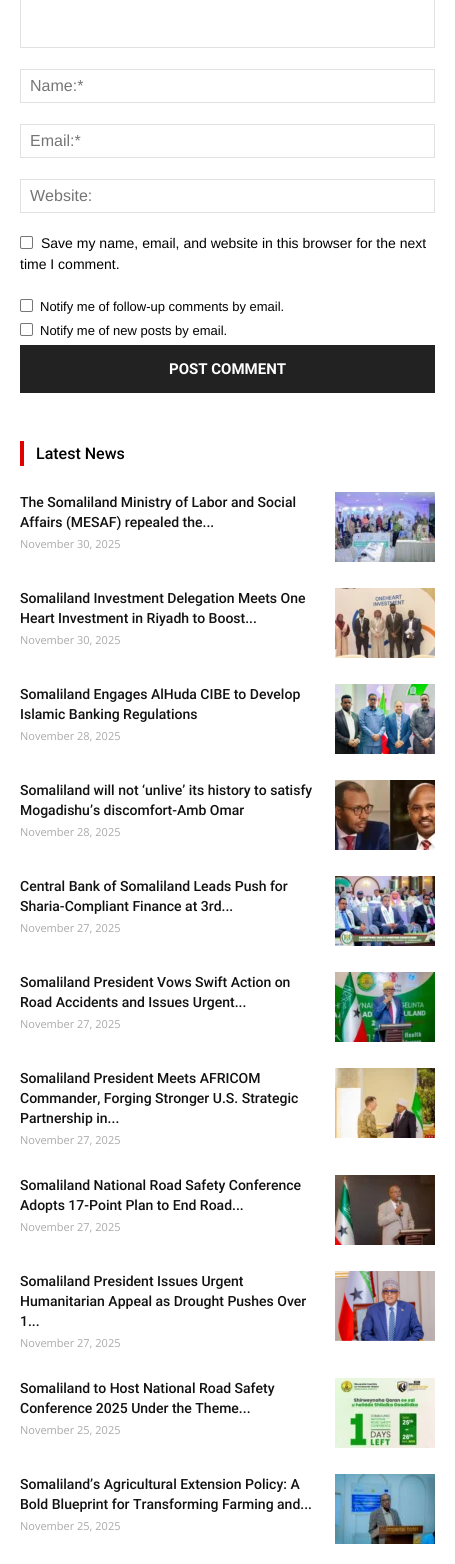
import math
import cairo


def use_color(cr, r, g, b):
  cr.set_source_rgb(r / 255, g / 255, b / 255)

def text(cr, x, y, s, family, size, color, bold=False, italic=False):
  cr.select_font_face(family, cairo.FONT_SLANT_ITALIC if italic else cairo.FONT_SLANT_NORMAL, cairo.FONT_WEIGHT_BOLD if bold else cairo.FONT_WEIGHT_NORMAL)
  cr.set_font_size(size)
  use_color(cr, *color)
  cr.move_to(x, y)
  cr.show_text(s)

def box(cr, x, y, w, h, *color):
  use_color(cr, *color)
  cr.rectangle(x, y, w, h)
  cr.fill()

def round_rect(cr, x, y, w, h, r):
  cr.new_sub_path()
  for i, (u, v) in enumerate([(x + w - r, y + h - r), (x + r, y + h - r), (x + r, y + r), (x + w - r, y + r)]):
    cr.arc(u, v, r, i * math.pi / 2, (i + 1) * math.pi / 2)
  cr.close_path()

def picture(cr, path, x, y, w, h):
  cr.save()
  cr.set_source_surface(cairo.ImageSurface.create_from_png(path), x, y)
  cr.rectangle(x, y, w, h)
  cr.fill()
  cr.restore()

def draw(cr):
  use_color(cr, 255, 255, 255)
  cr.paint()
  cr.rectangle(20.5, -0.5, 414, 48)
  use_color(cr, 225, 225, 225)
  cr.set_line_width(1)
  cr.stroke()
  cr.rectangle(20.5, 69.5, 414, 33)
  cr.stroke()
  cr.rectangle(20.5, 124.5, 414, 33)
  cr.stroke()
  cr.rectangle(20.5, 179.5, 414, 33)
  cr.stroke()
  round_rect(cr, 20.5, 236.5, 12, 12, 1.5)
  use_color(cr, 118, 118, 118)
  cr.stroke()
  round_rect(cr, 20.5, 299.5, 12, 12, 1.5)
  cr.stroke()
  round_rect(cr, 20.5, 323.5, 12, 12, 1.5)
  cr.stroke()
  box(cr, 20, 345, 415, 48, 34, 34, 34)
  box(cr, 20, 441, 4, 25, 225, 0, 0)
  picture(cr, "img_01.png", 335, 492, 100, 70)
  picture(cr, "img_02.png", 335, 588, 100, 70)
  picture(cr, "img_03.png", 335, 684, 100, 70)
  picture(cr, "img_04.png", 335, 780, 100, 70)
  picture(cr, "img_05.png", 335, 876, 100, 70)
  picture(cr, "img_06.png", 335, 972, 100, 70)
  picture(cr, "img_07.png", 335, 1068, 100, 70)
  picture(cr, "img_08.png", 335, 1175, 100, 70)
  picture(cr, "img_09.png", 335, 1271, 100, 70)
  picture(cr, "img_10.png", 335, 1378, 100, 70)
  picture(cr, "img_11.png", 335, 1474, 100, 70)
  text(cr, 30, 91, "Name:*", "Liberation Sans", 16, (117, 117, 117))
  text(cr, 30, 146, "Email:*", "Liberation Sans", 16, (117, 117, 117))
  text(cr, 30, 201, "Website:", "Liberation Sans", 16, (117, 117, 117))
  text(cr, 41, 248, "Save my name, email, and website in this browser for the next", "Liberation Sans", 14, (0, 0, 0))
  text(cr, 20, 269, "time I comment.", "Liberation Sans", 14, (0, 0, 0))
  text(cr, 40, 311, "Notify me of follow-up comments by email.", "Liberation Sans", 13, (0, 0, 0))
  text(cr, 40, 335, "Notify me of new posts by email.", "Liberation Sans", 13, (0, 0, 0))
  text(cr, 169, 374, "POST COMMENT", "Roboto", 15, (255, 255, 255), bold=True)
  text(cr, 36, 459, "Latest News", "Roboto Medium", 16, (0, 0, 0))
  text(cr, 20, 507, "The Somaliland Ministry of Labor and Social", "Roboto Medium", 14, (17, 17, 17))
  text(cr, 20, 527, "Affairs (MESAF) repealed the...", "Roboto Medium", 14, (17, 17, 17))
  text(cr, 20, 548, "November 30, 2025", "Open Sans", 11, (170, 170, 170))
  text(cr, 20, 603, "Somaliland Investment Delegation Meets One", "Roboto Medium", 14, (17, 17, 17))
  text(cr, 20, 623, "Heart Investment in Riyadh to Boost...", "Roboto Medium", 14, (17, 17, 17))
  text(cr, 20, 644, "November 30, 2025", "Open Sans", 11, (170, 170, 170))
  text(cr, 20, 699, "Somaliland Engages AlHuda CIBE to Develop", "Roboto Medium", 14, (17, 17, 17))
  text(cr, 20, 719, "Islamic Banking Regulations", "Roboto Medium", 14, (17, 17, 17))
  text(cr, 20, 740, "November 28, 2025", "Open Sans", 11, (170, 170, 170))
  text(cr, 20, 795, "Somaliland will not ‘unlive’ its history to satisfy", "Roboto Medium", 14, (17, 17, 17))
  text(cr, 20, 815, "Mogadishu’s discomfort-Amb Omar", "Roboto Medium", 14, (17, 17, 17))
  text(cr, 20, 836, "November 28, 2025", "Open Sans", 11, (170, 170, 170))
  text(cr, 20, 891, "Central Bank of Somaliland Leads Push for", "Roboto Medium", 14, (17, 17, 17))
  text(cr, 20, 911, "Sharia-Compliant Finance at 3rd...", "Roboto Medium", 14, (17, 17, 17))
  text(cr, 20, 932, "November 27, 2025", "Open Sans", 11, (170, 170, 170))
  text(cr, 20, 987, "Somaliland President Vows Swift Action on", "Roboto Medium", 14, (17, 17, 17))
  text(cr, 20, 1007, "Road Accidents and Issues Urgent...", "Roboto Medium", 14, (17, 17, 17))
  text(cr, 20, 1028, "November 27, 2025", "Open Sans", 11, (170, 170, 170))
  text(cr, 20, 1083, "Somaliland President Meets AFRICOM", "Roboto Medium", 14, (17, 17, 17))
  text(cr, 20, 1103, "Commander, Forging Stronger U.S. Strategic", "Roboto Medium", 14, (17, 17, 17))
  text(cr, 20, 1123, "Partnership in...", "Roboto Medium", 14, (17, 17, 17))
  text(cr, 20, 1144, "November 27, 2025", "Open Sans", 11, (170, 170, 170))
  text(cr, 20, 1190, "Somaliland National Road Safety Conference", "Roboto Medium", 14, (17, 17, 17))
  text(cr, 20, 1210, "Adopts 17-Point Plan to End Road...", "Roboto Medium", 14, (17, 17, 17))
  text(cr, 20, 1231, "November 27, 2025", "Open Sans", 11, (170, 170, 170))
  text(cr, 20, 1286, "Somaliland President Issues Urgent", "Roboto Medium", 14, (17, 17, 17))
  text(cr, 20, 1306, "Humanitarian Appeal as Drought Pushes Over", "Roboto Medium", 14, (17, 17, 17))
  text(cr, 20, 1326, "1...", "Roboto Medium", 14, (17, 17, 17))
  text(cr, 20, 1347, "November 27, 2025", "Open Sans", 11, (170, 170, 170))
  text(cr, 20, 1393, "Somaliland to Host National Road Safety", "Roboto Medium", 14, (17, 17, 17))
  text(cr, 20, 1413, "Conference 2025 Under the Theme...", "Roboto Medium", 14, (17, 17, 17))
  text(cr, 20, 1434, "November 25, 2025", "Open Sans", 11, (170, 170, 170))
  text(cr, 20, 1489, "Somaliland’s Agricultural Extension Policy: A", "Roboto Medium", 14, (17, 17, 17))
  text(cr, 20, 1509, "Bold Blueprint for Transforming Farming and...", "Roboto Medium", 14, (17, 17, 17))
  text(cr, 20, 1530, "November 25, 2025", "Open Sans", 11, (170, 170, 170))


surface = cairo.ImageSurface(cairo.FORMAT_RGB24, 455, 1564)
cr = cairo.Context(surface)
options = cairo.FontOptions()
options.set_hint_metrics(cairo.HINT_METRICS_OFF)
options.set_hint_style(cairo.HINT_STYLE_NONE)
cr.set_font_options(options)
cr.set_miter_limit(4)
draw(cr)
surface.write_to_png("out.png")
